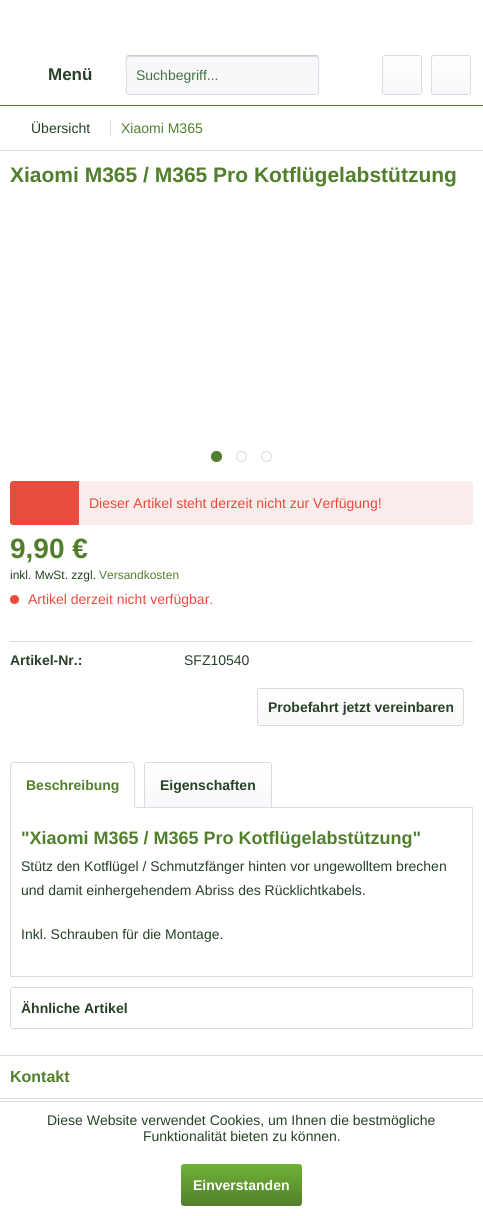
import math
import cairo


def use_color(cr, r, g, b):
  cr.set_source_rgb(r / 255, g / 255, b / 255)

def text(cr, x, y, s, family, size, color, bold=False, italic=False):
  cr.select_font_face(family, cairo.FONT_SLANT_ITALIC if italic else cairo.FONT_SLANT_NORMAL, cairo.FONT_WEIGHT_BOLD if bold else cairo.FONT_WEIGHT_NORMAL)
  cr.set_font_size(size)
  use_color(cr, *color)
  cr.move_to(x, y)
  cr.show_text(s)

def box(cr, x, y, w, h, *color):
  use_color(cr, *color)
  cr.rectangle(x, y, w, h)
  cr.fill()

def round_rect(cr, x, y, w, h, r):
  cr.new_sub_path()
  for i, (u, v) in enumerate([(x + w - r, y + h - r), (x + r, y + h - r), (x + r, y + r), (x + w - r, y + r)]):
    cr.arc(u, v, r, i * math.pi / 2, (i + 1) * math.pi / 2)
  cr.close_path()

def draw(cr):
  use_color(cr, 255, 255, 255)
  cr.paint()
  box(cr, 0, 105, 483, 1, 82, 127, 44)
  use_color(cr, 248, 248, 250)
  round_rect(cr, 126, 55, 193, 40, 3)
  cr.fill()
  use_color(cr, 218, 218, 229)
  cr.new_path()
  cr.move_to(129, 57)
  cr.line_to(316, 57)
  cr.line_to(318, 58)
  cr.line_to(318, 59)
  cr.line_to(318, 58)
  cr.curve_to(318, 57, 317, 56, 316, 56)
  cr.line_to(129, 56)
  cr.curve_to(128, 56, 127, 57, 127, 58)
  cr.line_to(127, 59)
  cr.curve_to(127, 58, 128, 57, 129, 57)
  cr.close_path()
  cr.fill()
  cr.new_path()
  cr.move_to(127, 56)
  cr.line_to(129, 55.5)
  cr.line_to(316, 55.5)
  cr.line_to(318, 56)
  use_color(cr, 203, 203, 219)
  cr.set_line_width(1)
  cr.stroke()
  cr.new_path()
  cr.move_to(318, 56)
  cr.curve_to(319.5, 58, 318.5, 72, 318.5, 75)
  cr.line_to(318.5, 86.5)
  cr.curve_to(318.5, 88, 320, 94.5, 316, 94.5)
  cr.line_to(129, 94.5)
  cr.curve_to(125, 94.5, 126.5, 88, 126.5, 86.5)
  cr.line_to(126.5, 75)
  cr.curve_to(126.5, 72, 125.5, 58, 127, 56)
  use_color(cr, 218, 218, 229)
  cr.stroke()
  gradient = cairo.LinearGradient(402, 56, 402, 94)
  gradient.add_color_stop_rgba(0, 1, 1, 1, 1)
  gradient.add_color_stop_rgba(1, 0.973, 0.973, 0.98, 1)
  cr.set_source(gradient)
  round_rect(cr, 383, 56, 38, 38, 2)
  cr.fill()
  round_rect(cr, 382.5, 55.5, 39, 39, 2.5)
  use_color(cr, 218, 218, 229)
  cr.stroke()
  gradient = cairo.LinearGradient(451, 56, 451, 94)
  gradient.add_color_stop_rgba(0, 1, 1, 1, 1)
  gradient.add_color_stop_rgba(1, 0.973, 0.973, 0.98, 1)
  cr.set_source(gradient)
  round_rect(cr, 432, 56, 38, 38, 2)
  cr.fill()
  round_rect(cr, 431.5, 55.5, 39, 39, 2.5)
  use_color(cr, 218, 218, 229)
  cr.stroke()
  box(cr, 0, 150, 483, 1, 218, 218, 229)
  box(cr, 110, 120, 1, 16, 218, 218, 229)
  use_color(cr, 82, 127, 44)
  cr.arc(216.5, 456.5, 5, 0, 2 * math.pi)
  cr.fill_preserve()
  cr.stroke()
  cr.arc(241.5, 456.5, 5, 0, 2 * math.pi)
  use_color(cr, 218, 218, 229)
  cr.stroke()
  cr.arc(266.5, 456.5, 5, 0, 2 * math.pi)
  cr.stroke()
  use_color(cr, 250, 236, 235)
  round_rect(cr, 10, 481, 463, 44, 3)
  cr.fill()
  use_color(cr, 231, 76, 60)
  cr.new_path()
  cr.move_to(13, 481)
  cr.line_to(79, 481)
  cr.line_to(79, 525)
  cr.line_to(13, 525)
  cr.curve_to(11.5, 525, 10, 523.5, 10, 522)
  cr.line_to(10, 484)
  cr.curve_to(10, 482.5, 11.5, 481, 13, 481)
  cr.close_path()
  cr.fill()
  cr.arc(14.5, 599.5, 4.5, 0, 2 * math.pi)
  cr.fill()
  box(cr, 10, 641, 463, 1, 218, 218, 229)
  gradient = cairo.LinearGradient(361, 689, 361, 725)
  gradient.add_color_stop_rgba(0, 1, 1, 1, 1)
  gradient.add_color_stop_rgba(1, 0.973, 0.973, 0.98, 1)
  cr.set_source(gradient)
  round_rect(cr, 258, 689, 205, 36, 2)
  cr.fill()
  round_rect(cr, 257.5, 688.5, 206, 37, 2.5)
  use_color(cr, 218, 218, 229)
  cr.stroke()
  cr.rectangle(10.5, 807.5, 462, 169)
  cr.stroke()
  use_color(cr, 255, 255, 255)
  cr.new_path()
  cr.move_to(13, 762)
  cr.line_to(132, 762)
  cr.curve_to(133.5, 762, 135, 763.5, 135, 765)
  cr.line_to(135, 808)
  cr.line_to(10, 808)
  cr.line_to(10, 765)
  cr.curve_to(10, 763.5, 11.5, 762, 13, 762)
  cr.close_path()
  cr.fill()
  use_color(cr, 218, 218, 229)
  cr.new_path()
  cr.move_to(13, 762)
  cr.line_to(11, 763)
  cr.line_to(12, 764)
  cr.line_to(13, 763)
  cr.line_to(132, 763)
  cr.line_to(133, 764)
  cr.line_to(134, 763)
  cr.line_to(132, 762)
  cr.close_path()
  cr.fill()
  cr.new_path()
  cr.move_to(135, 808)
  cr.curve_to(135, 803, 136, 765, 134, 763)
  cr.line_to(133, 764)
  cr.curve_to(135, 765, 134, 802, 134, 807)
  cr.close_path()
  cr.fill()
  use_color(cr, 255, 255, 255)
  cr.new_path()
  cr.move_to(135, 808)
  cr.line_to(134, 807)
  cr.line_to(11, 807)
  cr.line_to(10, 808)
  cr.close_path()
  cr.fill()
  use_color(cr, 218, 218, 229)
  cr.new_path()
  cr.move_to(10, 808)
  cr.line_to(11, 807)
  cr.curve_to(11, 802, 10, 765, 12, 764)
  cr.line_to(11, 763)
  cr.line_to(10, 765)
  cr.close_path()
  cr.fill()
  gradient = cairo.LinearGradient(208, 763, 208, 807)
  gradient.add_color_stop_rgba(0, 1, 1, 1, 1)
  gradient.add_color_stop_rgba(1, 0.973, 0.973, 0.98, 1)
  cr.set_source(gradient)
  cr.new_path()
  cr.move_to(147, 763)
  cr.line_to(269, 763)
  cr.curve_to(270, 763, 271, 764, 271, 765)
  cr.line_to(271, 807)
  cr.line_to(145, 807)
  cr.line_to(145, 765)
  cr.curve_to(145, 764, 146, 763, 147, 763)
  cr.close_path()
  cr.fill()
  cr.new_path()
  cr.move_to(147, 762.5)
  cr.line_to(269, 762.5)
  cr.curve_to(270.5, 762.5, 271.5, 763.5, 271.5, 765)
  cr.line_to(271.5, 807.5)
  cr.line_to(144.5, 807.5)
  cr.line_to(144.5, 765)
  cr.curve_to(144.5, 763.5, 145.5, 762.5, 147, 762.5)
  cr.close_path()
  use_color(cr, 218, 218, 229)
  cr.stroke()
  round_rect(cr, 10.5, 987.5, 462, 41, 2.5)
  cr.stroke()
  box(cr, 0, 1055, 483, 1, 218, 218, 229)
  box(cr, 0, 1098, 483, 1, 218, 218, 229)
  box(cr, 0, 1101, 483, 1, 218, 218, 229)
  gradient = cairo.LinearGradient(242, 1164, 242, 1206)
  gradient.add_color_stop_rgba(0, 0.435, 0.698, 0.212, 1)
  gradient.add_color_stop_rgba(1, 0.322, 0.498, 0.173, 1)
  cr.set_source(gradient)
  round_rect(cr, 181, 1164, 121, 42, 3)
  cr.fill()
  text(cr, 48, 80, "Menü", "Liberation Sans", 17, (39, 65, 39), bold=True)
  text(cr, 136, 80, "Suchbegriff...", "Liberation Sans", 14, (68, 113, 68))
  text(cr, 31, 133, "Übersicht", "Liberation Sans", 14, (39, 65, 39))
  text(cr, 121, 133, "Xiaomi M365", "Liberation Sans", 14, (82, 127, 44))
  text(cr, 10, 182, "Xiaomi M365 / M365 Pro Kotflügelabstützung", "Liberation Sans", 21, (82, 127, 44), bold=True)
  text(cr, 89, 508, "Dieser Artikel steht derzeit nicht zur Verfügung!", "Liberation Sans", 14, (231, 76, 60))
  text(cr, 10, 558, "9,90 €", "Liberation Sans", 28, (82, 127, 44), bold=True)
  text(cr, 10, 579, "inkl. MwSt. zzgl.", "Liberation Sans", 12, (39, 65, 39))
  text(cr, 99, 579, "Versandkosten", "Liberation Sans", 12, (82, 127, 44))
  text(cr, 28, 604, "Artikel derzeit nicht verfügbar.", "Liberation Sans", 14, (231, 76, 60))
  text(cr, 10, 665, "Artikel-Nr.:", "Liberation Sans", 14, (39, 65, 39), bold=True)
  text(cr, 184, 665, "SFZ10540", "Liberation Sans", 14, (39, 65, 39))
  text(cr, 268, 712, "Probefahrt jetzt vereinbaren", "Liberation Sans", 14, (39, 65, 39), bold=True)
  text(cr, 26, 790, "Beschreibung", "Liberation Sans", 14, (82, 127, 44), bold=True)
  text(cr, 160, 790, "Eigenschaften", "Liberation Sans", 14, (39, 65, 39), bold=True)
  text(cr, 21, 844, "\"Xiaomi M365 / M365 Pro Kotflügelabstützung\"", "Liberation Sans", 18, (82, 127, 44), bold=True)
  text(cr, 21, 871, "Stütz den Kotflügel / Schmutzfänger hinten vor ungewolltem brechen", "Liberation Sans", 14, (39, 65, 39))
  text(cr, 21, 895, "und damit einhergehendem Abriss des Rücklichtkabels.", "Liberation Sans", 14, (39, 65, 39))
  text(cr, 21, 939, "Inkl. Schrauben für die Montage.", "Liberation Sans", 14, (39, 65, 39))
  text(cr, 21, 1013, "Ähnliche Artikel", "Liberation Sans", 14, (39, 65, 39), bold=True)
  text(cr, 10, 1082, "Kontakt", "Liberation Sans", 16, (82, 127, 44), bold=True)
  text(cr, 47, 1125, "Diese Website verwendet Cookies, um Ihnen die bestmögliche", "Liberation Sans", 14, (39, 65, 39))
  text(cr, 143, 1141, "Funktionalität bieten zu können.", "Liberation Sans", 14, (39, 65, 39))
  text(cr, 193, 1190, "Einverstanden", "Liberation Sans", 14, (255, 255, 255), bold=True)


surface = cairo.ImageSurface(cairo.FORMAT_RGB24, 483, 1216)
cr = cairo.Context(surface)
options = cairo.FontOptions()
options.set_hint_metrics(cairo.HINT_METRICS_OFF)
options.set_hint_style(cairo.HINT_STYLE_NONE)
cr.set_font_options(options)
cr.set_miter_limit(4)
draw(cr)
surface.write_to_png("out.png")
